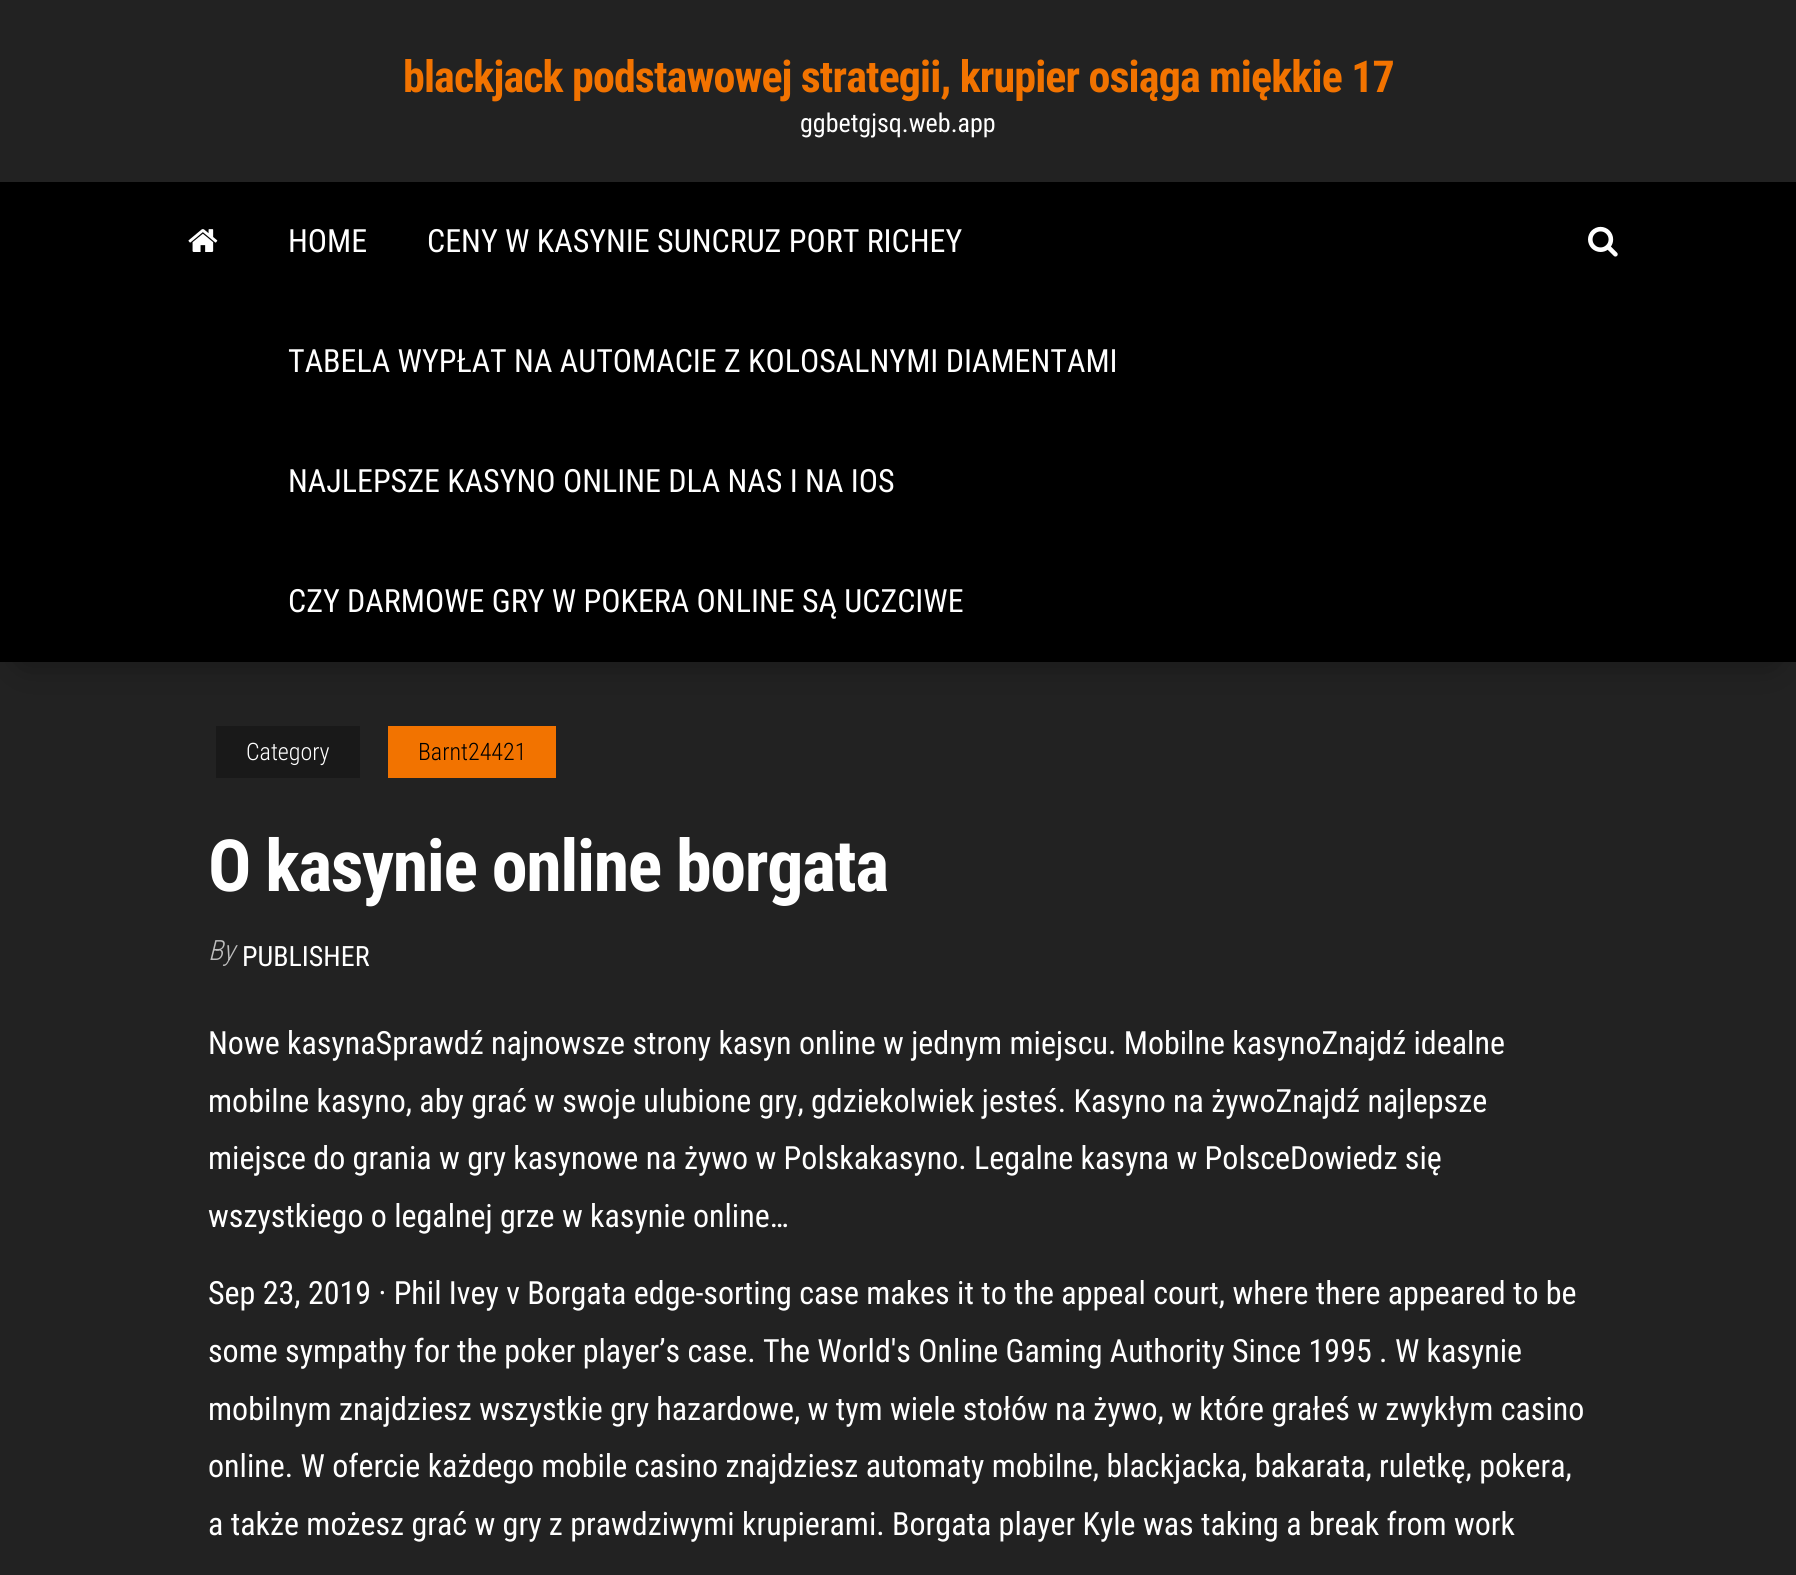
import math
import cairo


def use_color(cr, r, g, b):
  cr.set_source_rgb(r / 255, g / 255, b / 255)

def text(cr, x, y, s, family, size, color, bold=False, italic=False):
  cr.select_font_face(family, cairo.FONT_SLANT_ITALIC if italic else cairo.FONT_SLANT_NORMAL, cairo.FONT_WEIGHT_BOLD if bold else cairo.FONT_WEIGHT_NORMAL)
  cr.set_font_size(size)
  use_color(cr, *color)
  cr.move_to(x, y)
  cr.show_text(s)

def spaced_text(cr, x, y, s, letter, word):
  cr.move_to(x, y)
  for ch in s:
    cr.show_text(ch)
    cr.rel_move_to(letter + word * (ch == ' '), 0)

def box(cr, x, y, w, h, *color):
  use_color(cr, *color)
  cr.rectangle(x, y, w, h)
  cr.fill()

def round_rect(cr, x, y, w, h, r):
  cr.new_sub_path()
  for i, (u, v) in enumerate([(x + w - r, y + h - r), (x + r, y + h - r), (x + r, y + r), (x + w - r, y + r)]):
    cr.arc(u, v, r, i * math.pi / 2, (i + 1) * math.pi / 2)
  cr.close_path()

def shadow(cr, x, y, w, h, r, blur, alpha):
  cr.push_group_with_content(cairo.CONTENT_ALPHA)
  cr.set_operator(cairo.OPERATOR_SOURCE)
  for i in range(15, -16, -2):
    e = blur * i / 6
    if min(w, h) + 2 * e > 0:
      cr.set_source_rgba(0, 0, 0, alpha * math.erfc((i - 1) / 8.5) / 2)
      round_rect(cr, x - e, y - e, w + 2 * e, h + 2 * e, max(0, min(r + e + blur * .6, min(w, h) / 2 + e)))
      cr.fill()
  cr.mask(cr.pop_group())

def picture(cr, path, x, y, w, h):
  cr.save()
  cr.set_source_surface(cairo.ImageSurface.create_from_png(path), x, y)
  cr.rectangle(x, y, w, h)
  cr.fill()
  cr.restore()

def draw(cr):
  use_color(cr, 34, 34, 34)
  cr.paint()
  use_color(cr, 0, 0, 0)
  shadow(cr, 24, 226, 1748, 432, 0, 20, 0.42)
  box(cr, 0, 182, 1796, 480, 0, 0, 0)
  picture(cr, "img_01.png", 188, 229, 30, 23)
  picture(cr, "img_02.png", 1588, 226, 30, 31)
  box(cr, 216, 726, 144, 52, 25, 25, 25)
  box(cr, 388, 726, 168, 52, 242, 115, 0)
  cr.select_font_face("Roboto Condensed", cairo.FONT_SLANT_NORMAL, cairo.FONT_WEIGHT_BOLD)
  cr.set_font_size(44)
  spaced_text(cr, 403, 92, "blackjack podstawowej strategii, krupier osiąga miękkie 17", -0.88, 0)
  text(cr, 800, 132, "ggbetgjsq.web.app", "Roboto Condensed", 26, (255, 255, 255))
  text(cr, 288, 252, "HOME", "Roboto Condensed", 32, (255, 255, 255))
  text(cr, 427, 252, "CENY W KASYNIE SUNCRUZ PORT RICHEY", "Roboto Condensed", 32, (255, 255, 255))
  text(cr, 288, 372, "TABELA WYPŁAT NA AUTOMACIE Z KOLOSALNYMI DIAMENTAMI", "Roboto Condensed", 32, (255, 255, 255))
  text(cr, 288, 492, "NAJLEPSZE KASYNO ONLINE DLA NAS I NA IOS", "Roboto Condensed", 32, (255, 255, 255))
  text(cr, 288, 612, "CZY DARMOWE GRY W POKERA ONLINE SĄ UCZCIWE", "Roboto Condensed", 32, (255, 255, 255))
  text(cr, 246, 760, "Category", "Roboto Condensed Light", 24, (255, 255, 255))
  text(cr, 418, 760, "Barnt24421", "Roboto Condensed Light", 24, (0, 0, 0))
  cr.select_font_face("Roboto Condensed", cairo.FONT_SLANT_NORMAL, cairo.FONT_WEIGHT_BOLD)
  cr.set_font_size(72)
  use_color(cr, 255, 255, 255)
  spaced_text(cr, 208, 891, "O kasynie online borgata", -1.4, 0)
  text(cr, 208, 960, "By", "Roboto Condensed Light", 28, (189, 189, 189), italic=True)
  text(cr, 242, 966, "PUBLISHER", "Roboto Condensed", 28, (255, 255, 255))
  text(cr, 208, 1054, "Nowe kasynaSprawdź najnowsze strony kasyn online w jednym miejscu. Mobilne kasynoZnajdź idealne", "Roboto Condensed", 32, (255, 255, 255))
  text(cr, 208, 1112, "mobilne kasyno, aby grać w swoje ulubione gry, gdziekolwiek jesteś. Kasyno na żywoZnajdź najlepsze", "Roboto Condensed", 32, (255, 255, 255))
  text(cr, 208, 1169, "miejsce do grania w gry kasynowe na żywo w Polskakasyno. Legalne kasyna w PolsceDowiedz się", "Roboto Condensed", 32, (255, 255, 255))
  text(cr, 208, 1227, "wszystkiego o legalnej grze w kasynie online…", "Roboto Condensed", 32, (255, 255, 255))
  text(cr, 208, 1304, "Sep 23, 2019 · Phil Ivey v Borgata edge-sorting case makes it to the appeal court, where there appeared to be", "Roboto Condensed", 32, (255, 255, 255))
  text(cr, 208, 1362, "some sympathy for the poker player’s case. The World's Online Gaming Authority Since 1995 . W kasynie", "Roboto Condensed", 32, (255, 255, 255))
  text(cr, 208, 1420, "mobilnym znajdziesz wszystkie gry hazardowe, w tym wiele stołów na żywo, w które grałeś w zwykłym casino", "Roboto Condensed", 32, (255, 255, 255))
  text(cr, 208, 1477, "online. W ofercie każdego mobile casino znajdziesz automaty mobilne, blackjacka, bakarata, ruletkę, pokera,", "Roboto Condensed", 32, (255, 255, 255))
  text(cr, 208, 1535, "a także możesz grać w gry z prawdziwymi krupierami. Borgata player Kyle was taking a break from work", "Roboto Condensed", 32, (255, 255, 255))


surface = cairo.ImageSurface(cairo.FORMAT_RGB24, 1796, 1575)
cr = cairo.Context(surface)
options = cairo.FontOptions()
options.set_hint_metrics(cairo.HINT_METRICS_OFF)
options.set_hint_style(cairo.HINT_STYLE_NONE)
cr.set_font_options(options)
cr.set_miter_limit(4)
draw(cr)
surface.write_to_png("out.png")
